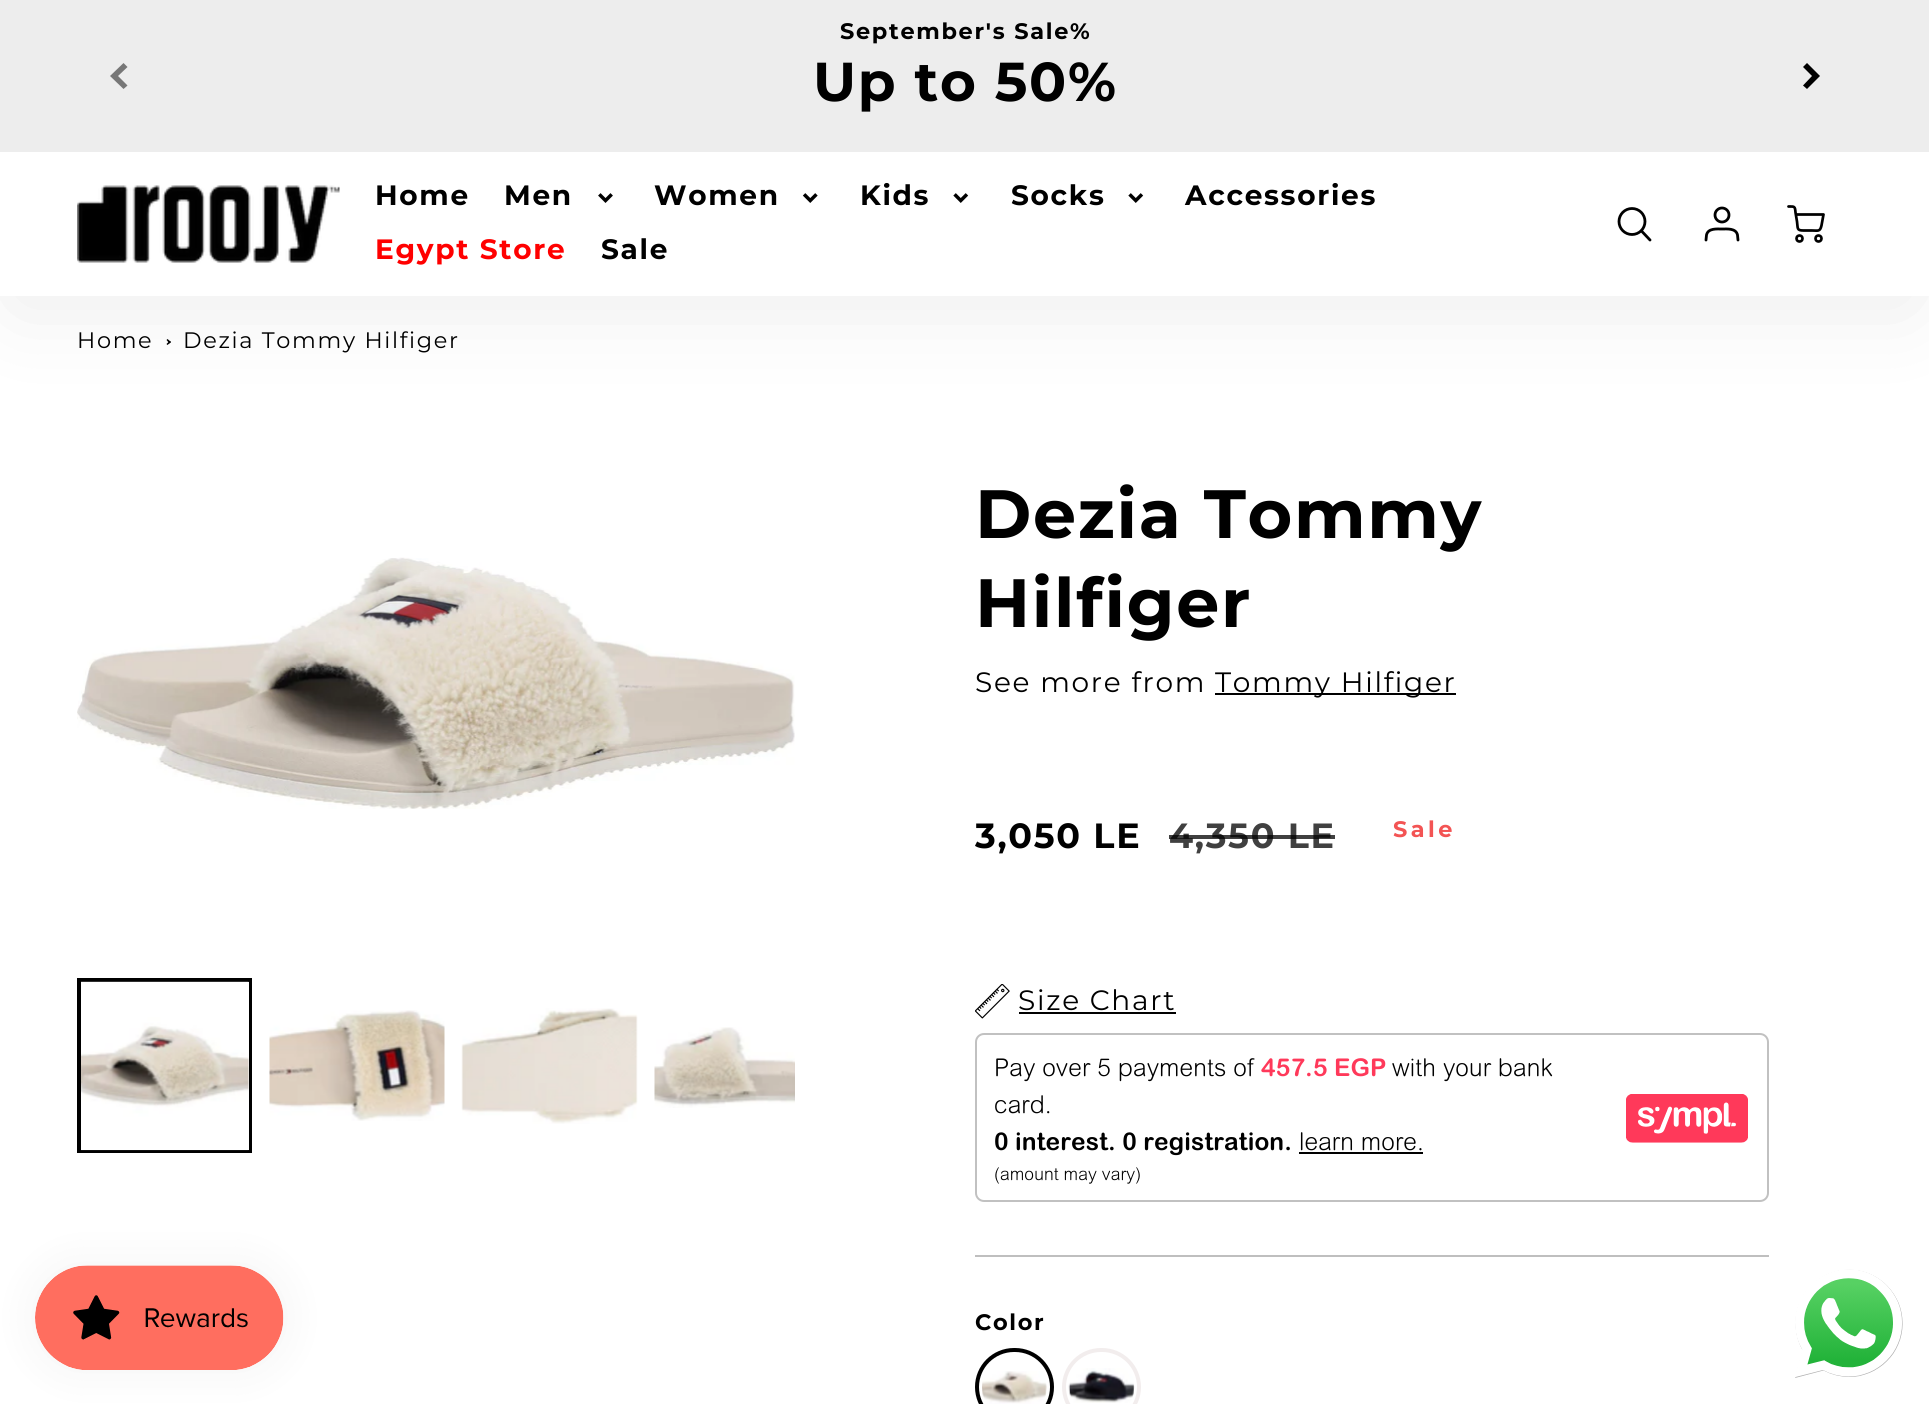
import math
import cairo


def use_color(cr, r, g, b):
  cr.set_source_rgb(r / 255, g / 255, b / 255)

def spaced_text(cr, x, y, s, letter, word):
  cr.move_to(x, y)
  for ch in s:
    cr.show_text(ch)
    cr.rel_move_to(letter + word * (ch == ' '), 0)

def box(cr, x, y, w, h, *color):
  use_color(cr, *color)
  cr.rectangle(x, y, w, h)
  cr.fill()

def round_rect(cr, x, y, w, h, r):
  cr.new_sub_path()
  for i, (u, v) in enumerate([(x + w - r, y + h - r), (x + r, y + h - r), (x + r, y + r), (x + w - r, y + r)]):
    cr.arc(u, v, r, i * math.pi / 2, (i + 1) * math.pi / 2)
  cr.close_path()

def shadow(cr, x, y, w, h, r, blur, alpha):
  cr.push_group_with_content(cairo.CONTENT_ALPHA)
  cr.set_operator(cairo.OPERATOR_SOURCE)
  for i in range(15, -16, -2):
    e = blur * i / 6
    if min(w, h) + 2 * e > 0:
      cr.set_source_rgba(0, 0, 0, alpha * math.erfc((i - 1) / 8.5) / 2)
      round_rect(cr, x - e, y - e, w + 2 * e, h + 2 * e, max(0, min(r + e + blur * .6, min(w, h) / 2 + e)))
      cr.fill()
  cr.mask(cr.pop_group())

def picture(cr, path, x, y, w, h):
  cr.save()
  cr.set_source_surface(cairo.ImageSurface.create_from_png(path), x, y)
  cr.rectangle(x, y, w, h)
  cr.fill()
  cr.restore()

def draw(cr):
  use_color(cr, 255, 255, 255)
  cr.paint()
  use_color(cr, 0, 0, 0)
  cr.new_path()
  cr.move_to(167.5, 339)
  cr.line_to(171, 342)
  cr.line_to(169.5, 343.5)
  cr.line_to(166.5, 340)
  cr.close_path()
  cr.fill()
  cr.new_path()
  cr.move_to(169.5, 341)
  cr.line_to(171, 342)
  cr.line_to(167.5, 345)
  cr.line_to(166.5, 344)
  cr.close_path()
  cr.fill()
  use_color(cr, 40, 40, 40)
  shadow(cr, 16, 194, 1895, 109, 0, 44, 0.1)
  box(cr, 0, 0, 1929, 152, 237, 237, 237)
  use_color(cr, 119, 119, 119)
  cr.new_path()
  cr.move_to(110, 76)
  cr.line_to(123.5, 89)
  cr.line_to(127.5, 85.5)
  cr.line_to(118, 76)
  cr.line_to(127.5, 67)
  cr.line_to(123.5, 63)
  cr.close_path()
  cr.fill()
  use_color(cr, 0, 0, 0)
  cr.new_path()
  cr.move_to(1820, 76)
  cr.line_to(1807, 63)
  cr.line_to(1803, 67)
  cr.line_to(1812, 76)
  cr.line_to(1803, 85.5)
  cr.line_to(1807, 89)
  cr.close_path()
  cr.fill()
  box(cr, 0, 152, 1929, 144, 255, 255, 255)
  picture(cr, "img_01.png", 77, 185, 263, 78)
  picture(cr, "img_02.png", 598, 193, 15, 10)
  picture(cr, "img_03.png", 802, 193, 16, 10)
  picture(cr, "img_04.png", 953, 193, 16, 10)
  picture(cr, "img_04.png", 1128, 193, 16, 10)
  cr.arc(1632, 221.5, 13, 0, 2 * math.pi)
  use_color(cr, 0, 0, 0)
  cr.set_line_width(2.8)
  cr.stroke()
  cr.new_path()
  cr.move_to(1650, 240)
  cr.line_to(1641.5, 231)
  cr.set_line_cap(cairo.LINE_CAP_ROUND)
  cr.set_line_join(cairo.LINE_JOIN_ROUND)
  cr.stroke()
  cr.arc(1722, 215, 7, 0, 2 * math.pi)
  cr.set_line_cap(cairo.LINE_CAP_BUTT)
  cr.set_line_join(cairo.LINE_JOIN_MITER)
  cr.stroke()
  cr.new_path()
  cr.move_to(1738, 240)
  cr.line_to(1737.5, 235)
  cr.curve_to(1736, 228, 1727, 229, 1722, 229)
  cr.curve_to(1717, 229, 1708, 228, 1706.5, 235)
  cr.line_to(1706, 240)
  cr.set_line_cap(cairo.LINE_CAP_ROUND)
  cr.set_line_join(cairo.LINE_JOIN_ROUND)
  cr.stroke()
  cr.new_path()
  cr.move_to(1796, 214.5)
  cr.line_to(1823.5, 214.5)
  cr.line_to(1821.5, 225.5)
  cr.curve_to(1820, 232, 1818, 230.5, 1812, 230.5)
  cr.line_to(1803.5, 230.5)
  cr.curve_to(1796.5, 230.5, 1798, 228.5, 1797, 221.5)
  cr.line_to(1795.5, 212.5)
  cr.curve_to(1795, 206, 1794.5, 206.5, 1788.5, 206.5)
  cr.set_line_width(2.7)
  cr.stroke()
  cr.arc(1799.5, 238.5, 3, 0, 2 * math.pi)
  cr.set_line_cap(cairo.LINE_CAP_BUTT)
  cr.set_line_join(cairo.LINE_JOIN_MITER)
  cr.stroke()
  cr.arc(1818.5, 238.5, 3, 0, 2 * math.pi)
  cr.stroke()
  picture(cr, "img_05.png", 77, 557, 718, 252)
  cr.rectangle(79, 980, 171, 171)
  cr.set_line_width(4)
  cr.stroke()
  box(cr, 81, 982, 168, 168, 255, 255, 255)
  picture(cr, "img_06.png", 81, 981, 168, 170)
  picture(cr, "img_07.png", 269, 1010, 176, 111)
  picture(cr, "img_08.png", 461, 1008, 177, 116)
  picture(cr, "img_09.png", 654, 1027, 141, 81)
  box(cr, 1215, 693, 241, 2, 0, 0, 0)
  picture(cr, "img_10.png", 975, 984, 35, 35)
  box(cr, 1019, 1012, 157, 2, 0, 0, 0)
  round_rect(cr, 976, 1034, 792, 167, 8)
  use_color(cr, 193, 193, 193)
  cr.set_line_width(2)
  cr.stroke()
  box(cr, 1299, 1152, 124, 2, 0, 0, 0)
  picture(cr, "img_11.png", 1626, 1094, 122, 49)
  box(cr, 975, 1255, 794, 2, 191, 191, 191)
  round_rect(cr, 977, 1350, 75, 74, 37)
  use_color(cr, 0, 0, 0)
  cr.set_line_width(4)
  cr.stroke()
  picture(cr, "img_12.png", 982, 1371, 65, 33)
  round_rect(cr, 1064, 1350, 75, 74, 37)
  use_color(cr, 242, 237, 237)
  cr.stroke()
  picture(cr, "img_13.png", 1068, 1368, 67, 35)
  use_color(cr, 0, 0, 0)
  shadow(cr, 35, 1265, 249, 105, 52.5, 22, 0.05)
  picture(cr, "img_14.png", 35, 1265, 249, 105)
  picture(cr, "img_15.png", 1795, 1269, 108, 109)
  cr.select_font_face("Montserrat", cairo.FONT_SLANT_NORMAL, cairo.FONT_WEIGHT_BOLD)
  cr.set_font_size(22.4)
  use_color(cr, 0, 0, 0)
  spaced_text(cr, 840, 39, "September's Sale%", 1.7, 0)
  cr.set_font_size(54.75)
  spaced_text(cr, 813, 101, "Up to 50%", 1.7, 0)
  cr.set_font_size(28)
  spaced_text(cr, 375, 205, "Home", 1.7, 0)
  spaced_text(cr, 504, 205, "Men", 1.7, 0)
  spaced_text(cr, 654, 205, "Women", 1.7, 0)
  spaced_text(cr, 860, 205, "Kids", 1.7, 0)
  spaced_text(cr, 1011, 205, "Socks", 1.7, 0)
  spaced_text(cr, 1185, 205, "Accessories", 1.7, 0)
  use_color(cr, 255, 0, 0)
  spaced_text(cr, 375, 259, "Egypt Store", 1.7, 0)
  use_color(cr, 0, 0, 0)
  spaced_text(cr, 601, 259, "Sale", 1.7, 0)
  cr.select_font_face("Montserrat")
  cr.set_font_size(22.4)
  spaced_text(cr, 77, 348, "Home", 1.7, 0)
  spaced_text(cr, 183, 348, "Dezia Tommy Hilfiger", 1.7, 0)
  cr.select_font_face("Montserrat", cairo.FONT_SLANT_NORMAL, cairo.FONT_WEIGHT_BOLD)
  cr.set_font_size(68.25)
  spaced_text(cr, 975, 538, "Dezia Tommy", 1.7, 0)
  spaced_text(cr, 975, 627, "Hilfiger", 1.7, 0)
  cr.select_font_face("Montserrat")
  cr.set_font_size(28)
  spaced_text(cr, 975, 692, "See more from", 1.7, 0)
  spaced_text(cr, 1215, 692, "Tommy Hilfiger", 1.7, 0)
  cr.select_font_face("Montserrat", cairo.FONT_SLANT_NORMAL, cairo.FONT_WEIGHT_BOLD)
  cr.set_font_size(35)
  spaced_text(cr, 975, 848, "3,050 LE", 1.7, 0)
  use_color(cr, 64, 64, 64)
  spaced_text(cr, 1169, 848, "4,350 LE", 1.7, 0)
  cr.set_source_rgba(0, 0, 0, 0.75)
  cr.rectangle(1169, 835, 166, 4)
  cr.fill()
  cr.set_font_size(22.4)
  use_color(cr, 243, 84, 84)
  spaced_text(cr, 1393, 837, "Sale", 3.5, 0)
  cr.select_font_face("Montserrat")
  cr.set_font_size(28)
  use_color(cr, 0, 0, 0)
  spaced_text(cr, 1018, 1010, "Size Chart", 1.7, 0)
  cr.select_font_face("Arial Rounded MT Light")
  cr.set_font_size(24.5)
  spaced_text(cr, 994, 1076, "Pay over 5 payments of", 0.15, 0)
  cr.select_font_face("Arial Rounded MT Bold", cairo.FONT_SLANT_NORMAL, cairo.FONT_WEIGHT_BOLD)
  use_color(cr, 255, 57, 90)
  spaced_text(cr, 1261, 1076, "457.5 EGP", 0.15, 0)
  cr.select_font_face("Arial Rounded MT Light")
  use_color(cr, 0, 0, 0)
  spaced_text(cr, 1392, 1076, "with your bank", 0.15, 0)
  spaced_text(cr, 994, 1113, "card.", 0.15, 0)
  cr.select_font_face("Arial Rounded MT Bold", cairo.FONT_SLANT_NORMAL, cairo.FONT_WEIGHT_BOLD)
  spaced_text(cr, 994, 1150, "0 interest. 0 registration.", 0.15, 0)
  cr.select_font_face("Arial Rounded MT Light")
  spaced_text(cr, 1299, 1150, "learn more.", 0.15, 0)
  cr.set_font_size(17.5)
  spaced_text(cr, 994, 1180, "(amount may vary)", 0.1, 0)
  cr.select_font_face("Montserrat", cairo.FONT_SLANT_NORMAL, cairo.FONT_WEIGHT_BOLD)
  cr.set_font_size(22.4)
  spaced_text(cr, 975, 1330, "Color", 1.7, 0)


surface = cairo.ImageSurface(cairo.FORMAT_RGB24, 1929, 1404)
cr = cairo.Context(surface)
options = cairo.FontOptions()
options.set_hint_metrics(cairo.HINT_METRICS_OFF)
options.set_hint_style(cairo.HINT_STYLE_NONE)
cr.set_font_options(options)
cr.set_miter_limit(4)
draw(cr)
surface.write_to_png("out.png")
